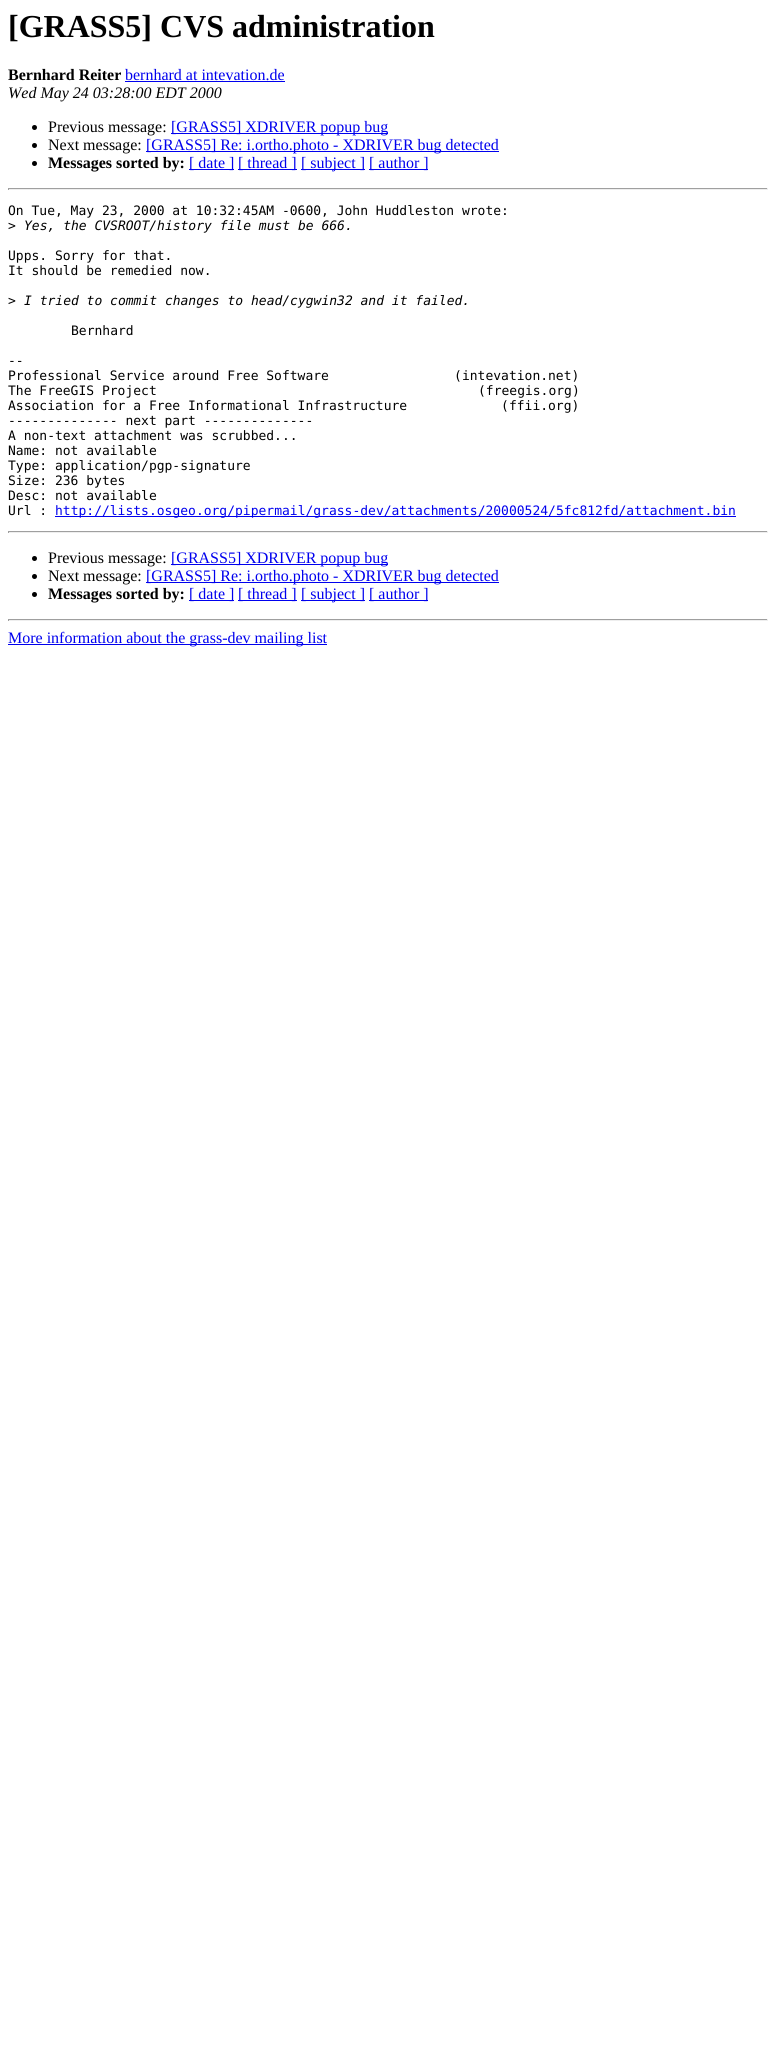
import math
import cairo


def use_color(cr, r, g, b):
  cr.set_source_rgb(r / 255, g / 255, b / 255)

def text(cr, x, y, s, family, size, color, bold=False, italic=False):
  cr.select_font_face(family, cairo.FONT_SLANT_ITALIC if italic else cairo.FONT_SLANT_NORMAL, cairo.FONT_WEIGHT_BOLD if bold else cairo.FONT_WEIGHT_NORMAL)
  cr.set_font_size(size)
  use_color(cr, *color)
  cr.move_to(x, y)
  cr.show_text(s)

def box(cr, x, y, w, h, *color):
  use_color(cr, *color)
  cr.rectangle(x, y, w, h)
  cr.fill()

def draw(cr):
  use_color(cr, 255, 255, 255)
  cr.paint()
  box(cr, 125, 81, 160, 1, 0, 0, 238)
  use_color(cr, 0, 0, 0)
  cr.arc(34.5, 127.5, 2.5, 0, 2 * math.pi)
  cr.fill()
  box(cr, 171, 133, 217, 1, 0, 0, 238)
  use_color(cr, 0, 0, 0)
  cr.arc(34.5, 145.5, 2.5, 0, 2 * math.pi)
  cr.fill()
  box(cr, 146, 151, 353, 1, 0, 0, 238)
  use_color(cr, 0, 0, 0)
  cr.arc(34.5, 163.5, 2.5, 0, 2 * math.pi)
  cr.fill()
  box(cr, 189, 169, 45, 1, 0, 0, 238)
  box(cr, 238, 169, 59, 1, 0, 0, 238)
  box(cr, 301, 169, 64, 1, 0, 0, 238)
  box(cr, 369, 169, 59, 1, 0, 0, 238)
  box(cr, 8, 188, 760, 1, 159, 159, 159)
  box(cr, 767, 188, 1, 2, 238, 238, 238)
  box(cr, 8, 189, 760, 1, 238, 238, 238)
  box(cr, 8, 188, 1, 2, 159, 159, 159)
  box(cr, 55, 516, 681, 1, 0, 0, 238)
  box(cr, 8, 531, 760, 1, 159, 159, 159)
  box(cr, 767, 531, 1, 2, 238, 238, 238)
  box(cr, 8, 532, 760, 1, 238, 238, 238)
  box(cr, 8, 531, 1, 2, 159, 159, 159)
  use_color(cr, 0, 0, 0)
  cr.arc(34.5, 558.5, 2.5, 0, 2 * math.pi)
  cr.fill()
  box(cr, 171, 564, 217, 1, 0, 0, 238)
  use_color(cr, 0, 0, 0)
  cr.arc(34.5, 576.5, 2.5, 0, 2 * math.pi)
  cr.fill()
  box(cr, 146, 582, 353, 1, 0, 0, 238)
  use_color(cr, 0, 0, 0)
  cr.arc(34.5, 594.5, 2.5, 0, 2 * math.pi)
  cr.fill()
  box(cr, 189, 600, 45, 1, 0, 0, 238)
  box(cr, 238, 600, 59, 1, 0, 0, 238)
  box(cr, 301, 600, 64, 1, 0, 0, 238)
  box(cr, 369, 600, 59, 1, 0, 0, 238)
  box(cr, 8, 619, 760, 1, 159, 159, 159)
  box(cr, 767, 619, 1, 2, 238, 238, 238)
  box(cr, 8, 620, 760, 1, 238, 238, 238)
  box(cr, 8, 619, 1, 2, 159, 159, 159)
  box(cr, 8, 644, 319, 1, 0, 0, 238)
  text(cr, 8, 37, "[GRASS5] CVS administration", "Liberation Serif", 32, (0, 0, 0), bold=True)
  text(cr, 8, 80, "Bernhard Reiter", "Liberation Serif", 16, (0, 0, 0), bold=True)
  text(cr, 125, 80, "bernhard at intevation.de", "Liberation Serif", 16, (0, 0, 238))
  text(cr, 8, 98, "Wed May 24 03:28:00 EDT 2000", "Liberation Serif", 16, (0, 0, 0), italic=True)
  text(cr, 48, 132, "Previous message:", "Liberation Serif", 16, (0, 0, 0))
  text(cr, 171, 132, "[GRASS5] XDRIVER popup bug", "Liberation Serif", 16, (0, 0, 238))
  text(cr, 48, 150, "Next message:", "Liberation Serif", 16, (0, 0, 0))
  text(cr, 146, 150, "[GRASS5] Re: i.ortho.photo - XDRIVER bug detected", "Liberation Serif", 16, (0, 0, 238))
  text(cr, 48, 168, "Messages sorted by:", "Liberation Serif", 16, (0, 0, 0), bold=True)
  text(cr, 189, 168, "[ date ]", "Liberation Serif", 16, (0, 0, 238))
  text(cr, 238, 168, "[ thread ]", "Liberation Serif", 16, (0, 0, 238))
  text(cr, 301, 168, "[ subject ]", "Liberation Serif", 16, (0, 0, 238))
  text(cr, 369, 168, "[ author ]", "Liberation Serif", 16, (0, 0, 238))
  text(cr, 8, 215, "On Tue, May 23, 2000 at 10:32:45AM -0600, John Huddleston wrote:", "DejaVu Sans Mono", 13, (0, 0, 0))
  text(cr, 8, 230, ">", "DejaVu Sans Mono", 13, (0, 0, 0))
  text(cr, 24, 230, "Yes, the CVSROOT/history file must be 666.", "DejaVu Sans Mono", 13, (0, 0, 0), italic=True)
  text(cr, 8, 260, "Upps. Sorry for that.", "DejaVu Sans Mono", 13, (0, 0, 0))
  text(cr, 8, 275, "It should be remedied now.", "DejaVu Sans Mono", 13, (0, 0, 0))
  text(cr, 8, 305, ">", "DejaVu Sans Mono", 13, (0, 0, 0))
  text(cr, 24, 305, "I tried to commit changes to head/cygwin32 and it failed.", "DejaVu Sans Mono", 13, (0, 0, 0), italic=True)
  text(cr, 71, 335, "Bernhard", "DejaVu Sans Mono", 13, (0, 0, 0))
  text(cr, 8, 365, "--", "DejaVu Sans Mono", 13, (0, 0, 0))
  text(cr, 8, 380, "Professional Service around Free Software                (intevation.net)", "DejaVu Sans Mono", 13, (0, 0, 0))
  text(cr, 8, 395, "The FreeGIS Project", "DejaVu Sans Mono", 13, (0, 0, 0))
  text(cr, 478, 395, "(freegis.org)", "DejaVu Sans Mono", 13, (0, 0, 0))
  text(cr, 8, 410, "Association for a Free Informational Infrastructure            (ffii.org)", "DejaVu Sans Mono", 13, (0, 0, 0))
  text(cr, 8, 425, "-------------- next part --------------", "DejaVu Sans Mono", 13, (0, 0, 0))
  text(cr, 8, 440, "A non-text attachment was scrubbed...", "DejaVu Sans Mono", 13, (0, 0, 0))
  text(cr, 8, 455, "Name: not available", "DejaVu Sans Mono", 13, (0, 0, 0))
  text(cr, 8, 470, "Type: application/pgp-signature", "DejaVu Sans Mono", 13, (0, 0, 0))
  text(cr, 8, 485, "Size: 236 bytes", "DejaVu Sans Mono", 13, (0, 0, 0))
  text(cr, 8, 500, "Desc: not available", "DejaVu Sans Mono", 13, (0, 0, 0))
  text(cr, 8, 515, "Url :", "DejaVu Sans Mono", 13, (0, 0, 0))
  text(cr, 55, 515, "http://lists.osgeo.org/pipermail/grass-dev/attachments/20000524/5fc812fd/attachment.bin", "DejaVu Sans Mono", 13, (0, 0, 238))
  text(cr, 48, 563, "Previous message:", "Liberation Serif", 16, (0, 0, 0))
  text(cr, 171, 563, "[GRASS5] XDRIVER popup bug", "Liberation Serif", 16, (0, 0, 238))
  text(cr, 48, 581, "Next message:", "Liberation Serif", 16, (0, 0, 0))
  text(cr, 146, 581, "[GRASS5] Re: i.ortho.photo - XDRIVER bug detected", "Liberation Serif", 16, (0, 0, 238))
  text(cr, 48, 599, "Messages sorted by:", "Liberation Serif", 16, (0, 0, 0), bold=True)
  text(cr, 189, 599, "[ date ]", "Liberation Serif", 16, (0, 0, 238))
  text(cr, 238, 599, "[ thread ]", "Liberation Serif", 16, (0, 0, 238))
  text(cr, 301, 599, "[ subject ]", "Liberation Serif", 16, (0, 0, 238))
  text(cr, 369, 599, "[ author ]", "Liberation Serif", 16, (0, 0, 238))
  text(cr, 8, 643, "More information about the grass-dev mailing list", "Liberation Serif", 16, (0, 0, 238))


surface = cairo.ImageSurface(cairo.FORMAT_RGB24, 776, 2070)
cr = cairo.Context(surface)
options = cairo.FontOptions()
options.set_hint_metrics(cairo.HINT_METRICS_OFF)
options.set_hint_style(cairo.HINT_STYLE_NONE)
cr.set_font_options(options)
cr.set_miter_limit(4)
draw(cr)
surface.write_to_png("out.png")
